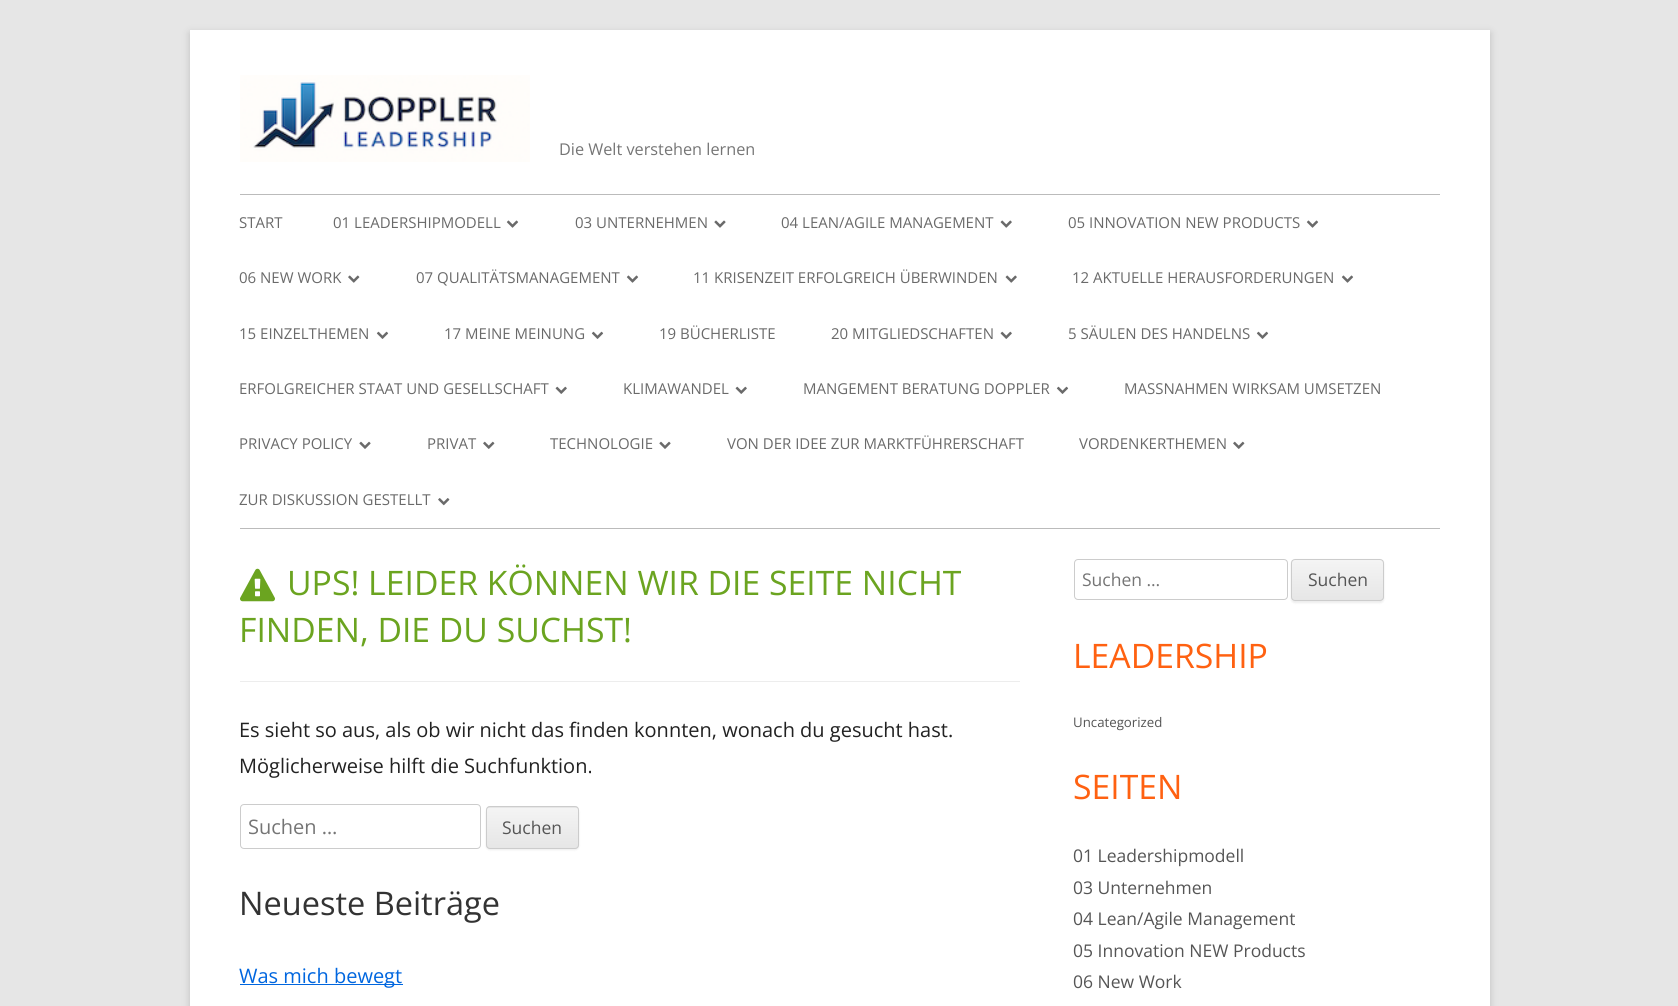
import math
import cairo


def use_color(cr, r, g, b):
  cr.set_source_rgb(r / 255, g / 255, b / 255)

def text(cr, x, y, s, family, size, color, bold=False, italic=False):
  cr.select_font_face(family, cairo.FONT_SLANT_ITALIC if italic else cairo.FONT_SLANT_NORMAL, cairo.FONT_WEIGHT_BOLD if bold else cairo.FONT_WEIGHT_NORMAL)
  cr.set_font_size(size)
  use_color(cr, *color)
  cr.move_to(x, y)
  cr.show_text(s)

def box(cr, x, y, w, h, *color):
  use_color(cr, *color)
  cr.rectangle(x, y, w, h)
  cr.fill()

def round_rect(cr, x, y, w, h, r):
  cr.new_sub_path()
  for i, (u, v) in enumerate([(x + w - r, y + h - r), (x + r, y + h - r), (x + r, y + r), (x + w - r, y + r)]):
    cr.arc(u, v, r, i * math.pi / 2, (i + 1) * math.pi / 2)
  cr.close_path()

def shadow(cr, x, y, w, h, r, blur, alpha):
  cr.push_group_with_content(cairo.CONTENT_ALPHA)
  cr.set_operator(cairo.OPERATOR_SOURCE)
  for i in range(15, -16, -2):
    e = blur * i / 6
    if min(w, h) + 2 * e > 0:
      cr.set_source_rgba(0, 0, 0, alpha * math.erfc((i - 1) / 8.5) / 2)
      round_rect(cr, x - e, y - e, w + 2 * e, h + 2 * e, max(0, min(r + e + blur * .6, min(w, h) / 2 + e)))
      cr.fill()
  cr.mask(cr.pop_group())

def picture(cr, path, x, y, w, h):
  cr.save()
  cr.set_source_surface(cairo.ImageSurface.create_from_png(path), x, y)
  cr.rectangle(x, y, w, h)
  cr.fill()
  cr.restore()

def draw(cr):
  use_color(cr, 230, 230, 230)
  cr.paint()
  use_color(cr, 100, 100, 100)
  shadow(cr, 190, 33, 1300, 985, 0, 4, 0.3)
  box(cr, 190, 30, 1300, 976, 255, 255, 255)
  picture(cr, "img_01.png", 240, 75, 290, 87)
  box(cr, 240, 194, 1200, 1, 187, 187, 187)
  box(cr, 240, 528, 1200, 1, 187, 187, 187)
  picture(cr, "img_02.png", 506, 220, 13, 8)
  picture(cr, "img_03.png", 714, 220, 12, 8)
  picture(cr, "img_04.png", 1000, 220, 12, 8)
  picture(cr, "img_02.png", 1306, 220, 13, 8)
  picture(cr, "img_05.png", 348, 275, 12, 8)
  picture(cr, "img_02.png", 626, 275, 13, 8)
  picture(cr, "img_04.png", 1005, 275, 12, 8)
  picture(cr, "img_02.png", 1341, 275, 13, 8)
  picture(cr, "img_06.png", 376, 331, 13, 8)
  picture(cr, "img_06.png", 591, 331, 13, 8)
  picture(cr, "img_07.png", 1000, 331, 12, 8)
  picture(cr, "img_06.png", 1256, 331, 13, 8)
  picture(cr, "img_07.png", 555, 386, 12, 8)
  picture(cr, "img_07.png", 735, 386, 12, 8)
  picture(cr, "img_06.png", 1056, 386, 13, 8)
  picture(cr, "img_08.png", 359, 441, 12, 8)
  picture(cr, "img_09.png", 483, 441, 12, 8)
  picture(cr, "img_08.png", 659, 441, 12, 8)
  picture(cr, "img_09.png", 1233, 441, 12, 8)
  picture(cr, "img_10.png", 438, 498, 12, 8)
  box(cr, 240, 681, 780, 1, 237, 237, 237)
  picture(cr, "img_11.png", 240, 568, 35, 34)
  round_rect(cr, 240.5, 804.5, 240, 44, 3.5)
  use_color(cr, 204, 204, 204)
  cr.set_line_width(1)
  cr.stroke()
  use_color(cr, 64, 64, 64)
  shadow(cr, 486, 808, 93, 42, 4, 1, 0.1)
  use_color(cr, 230, 230, 230)
  round_rect(cr, 486, 806, 93, 43, 4)
  cr.fill()
  cr.save()
  round_rect(cr, 486, 806, 93, 43, 4)
  cr.clip()
  gradient = cairo.LinearGradient(533, 808, 533, 848)
  gradient.add_color_stop_rgba(0, 0.957, 0.957, 0.957, 1)
  gradient.add_color_stop_rgba(1, 0.902, 0.902, 0.902, 1)
  cr.set_source(gradient)
  cr.rectangle(486, 808, 93, 40)
  cr.fill()
  cr.restore()
  round_rect(cr, 486.5, 806.5, 92, 42, 3.5)
  use_color(cr, 204, 204, 204)
  cr.stroke()
  box(cr, 240, 984, 163, 1, 0, 102, 223)
  round_rect(cr, 1074.5, 559.5, 213, 40, 3.5)
  use_color(cr, 204, 204, 204)
  cr.stroke()
  use_color(cr, 64, 64, 64)
  shadow(cr, 1291, 560, 93, 43, 4, 1, 0.1)
  cr.save()
  round_rect(cr, 1291, 559, 93, 42, 4)
  cr.clip()
  gradient = cairo.LinearGradient(1338, 560, 1338, 600)
  gradient.add_color_stop_rgba(0, 0.957, 0.957, 0.957, 1)
  gradient.add_color_stop_rgba(1, 0.902, 0.902, 0.902, 1)
  cr.set_source(gradient)
  cr.rectangle(1291, 560, 93, 40)
  cr.fill()
  cr.restore()
  round_rect(cr, 1291.5, 559.5, 92, 41, 3.5)
  use_color(cr, 204, 204, 204)
  cr.stroke()
  text(cr, 559, 155, "Die Welt verstehen lernen", "Open Sans", 16.25, (117, 117, 117))
  text(cr, 239, 228, "START", "Open Sans", 15, (106, 106, 106))
  text(cr, 333, 228, "01 LEADERSHIPMODELL", "Open Sans", 15, (106, 106, 106))
  text(cr, 575, 228, "03 UNTERNEHMEN", "Open Sans", 15, (106, 106, 106))
  text(cr, 781, 228, "04 LEAN/AGILE MANAGEMENT", "Open Sans", 15, (106, 106, 106))
  text(cr, 1068, 228, "05 INNOVATION NEW PRODUCTS", "Open Sans", 15, (106, 106, 106))
  text(cr, 239, 283, "06 NEW WORK", "Open Sans", 15, (106, 106, 106))
  text(cr, 416, 283, "07 QUALITÄTSMANAGEMENT", "Open Sans", 15, (106, 106, 106))
  text(cr, 693, 283, "11 KRISENZEIT ERFOLGREICH ÜBERWINDEN", "Open Sans", 15, (106, 106, 106))
  text(cr, 1072, 283, "12 AKTUELLE HERAUSFORDERUNGEN", "Open Sans", 15, (106, 106, 106))
  text(cr, 239, 339, "15 EINZELTHEMEN", "Open Sans", 15, (106, 106, 106))
  text(cr, 444, 339, "17 MEINE MEINUNG", "Open Sans", 15, (106, 106, 106))
  text(cr, 659, 339, "19 BÜCHERLISTE", "Open Sans", 15, (106, 106, 106))
  text(cr, 831, 339, "20 MITGLIEDSCHAFTEN", "Open Sans", 15, (106, 106, 106))
  text(cr, 1068, 339, "5 SÄULEN DES HANDELNS", "Open Sans", 15, (106, 106, 106))
  text(cr, 239, 394, "ERFOLGREICHER STAAT UND GESELLSCHAFT", "Open Sans", 15, (106, 106, 106))
  text(cr, 623, 394, "KLIMAWANDEL", "Open Sans", 15, (106, 106, 106))
  text(cr, 803, 394, "MANGEMENT BERATUNG DOPPLER", "Open Sans", 15, (106, 106, 106))
  text(cr, 1124, 394, "MASSNAHMEN WIRKSAM UMSETZEN", "Open Sans", 15, (106, 106, 106))
  text(cr, 239, 449, "PRIVACY POLICY", "Open Sans", 15, (106, 106, 106))
  text(cr, 427, 449, "PRIVAT", "Open Sans", 15, (106, 106, 106))
  text(cr, 550, 449, "TECHNOLOGIE", "Open Sans", 15, (106, 106, 106))
  text(cr, 727, 449, "VON DER IDEE ZUR MARKTFÜHRERSCHAFT", "Open Sans", 15, (106, 106, 106))
  text(cr, 1079, 449, "VORDENKERTHEMEN", "Open Sans", 15, (106, 106, 106))
  text(cr, 239, 505, "ZUR DISKUSSION GESTELLT", "Open Sans", 15, (106, 106, 106))
  text(cr, 287, 595, "UPS! LEIDER KÖNNEN WIR DIE SEITE NICHT", "Open Sans", 33.75, (107, 164, 32))
  text(cr, 239, 642, "FINDEN, DIE DU SUCHST!", "Open Sans", 33.75, (107, 164, 32))
  text(cr, 239, 737, "Es sieht so aus, als ob wir nicht das finden konnten, wonach du gesucht hast.", "Open Sans", 20, (34, 34, 34))
  text(cr, 239, 773, "Möglicherweise hilft die Suchfunktion.", "Open Sans", 20, (34, 34, 34))
  text(cr, 248, 834, "Suchen …", "Open Sans", 20, (117, 117, 117))
  text(cr, 502, 834, "Suchen", "Open Sans", 17.5, (85, 85, 85))
  text(cr, 239, 915, "Neueste Beiträge", "Open Sans", 32.5, (51, 51, 51))
  text(cr, 239, 983, "Was mich bewegt", "Open Sans", 20, (0, 102, 223))
  text(cr, 1082, 586, "Suchen …", "Open Sans", 17.5, (117, 117, 117))
  text(cr, 1308, 586, "Suchen", "Open Sans", 17.5, (85, 85, 85))
  text(cr, 1073, 668, "LEADERSHIP", "Open Sans", 33.75, (255, 97, 17))
  text(cr, 1073, 727, "Uncategorized", "Open Sans", 13.25, (85, 85, 85))
  text(cr, 1073, 799, "SEITEN", "Open Sans", 33.75, (255, 97, 17))
  text(cr, 1073, 862, "01 Leadershipmodell", "Open Sans", 17.5, (85, 85, 85))
  text(cr, 1073, 894, "03 Unternehmen", "Open Sans", 17.5, (85, 85, 85))
  text(cr, 1073, 925, "04 Lean/Agile Management", "Open Sans", 17.5, (85, 85, 85))
  text(cr, 1073, 957, "05 Innovation NEW Products", "Open Sans", 17.5, (85, 85, 85))
  text(cr, 1073, 988, "06 New Work", "Open Sans", 17.5, (85, 85, 85))


surface = cairo.ImageSurface(cairo.FORMAT_RGB24, 1678, 1006)
cr = cairo.Context(surface)
options = cairo.FontOptions()
options.set_hint_metrics(cairo.HINT_METRICS_OFF)
options.set_hint_style(cairo.HINT_STYLE_NONE)
cr.set_font_options(options)
cr.set_miter_limit(4)
draw(cr)
surface.write_to_png("out.png")
